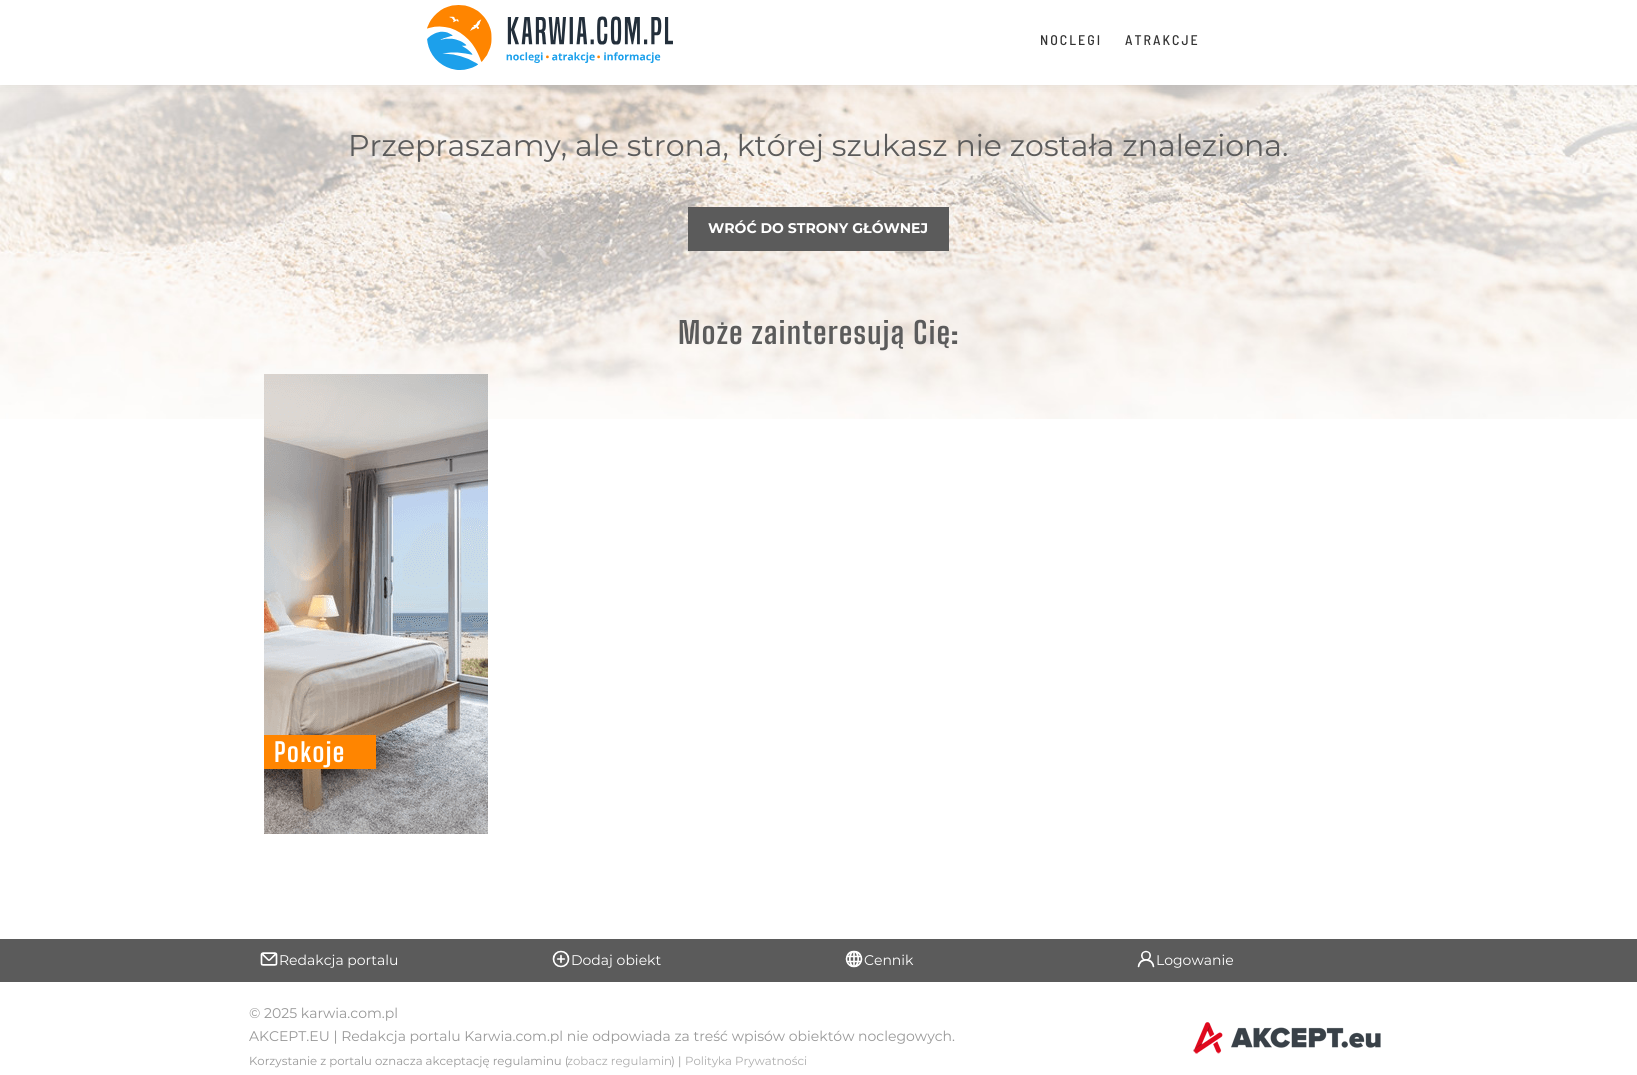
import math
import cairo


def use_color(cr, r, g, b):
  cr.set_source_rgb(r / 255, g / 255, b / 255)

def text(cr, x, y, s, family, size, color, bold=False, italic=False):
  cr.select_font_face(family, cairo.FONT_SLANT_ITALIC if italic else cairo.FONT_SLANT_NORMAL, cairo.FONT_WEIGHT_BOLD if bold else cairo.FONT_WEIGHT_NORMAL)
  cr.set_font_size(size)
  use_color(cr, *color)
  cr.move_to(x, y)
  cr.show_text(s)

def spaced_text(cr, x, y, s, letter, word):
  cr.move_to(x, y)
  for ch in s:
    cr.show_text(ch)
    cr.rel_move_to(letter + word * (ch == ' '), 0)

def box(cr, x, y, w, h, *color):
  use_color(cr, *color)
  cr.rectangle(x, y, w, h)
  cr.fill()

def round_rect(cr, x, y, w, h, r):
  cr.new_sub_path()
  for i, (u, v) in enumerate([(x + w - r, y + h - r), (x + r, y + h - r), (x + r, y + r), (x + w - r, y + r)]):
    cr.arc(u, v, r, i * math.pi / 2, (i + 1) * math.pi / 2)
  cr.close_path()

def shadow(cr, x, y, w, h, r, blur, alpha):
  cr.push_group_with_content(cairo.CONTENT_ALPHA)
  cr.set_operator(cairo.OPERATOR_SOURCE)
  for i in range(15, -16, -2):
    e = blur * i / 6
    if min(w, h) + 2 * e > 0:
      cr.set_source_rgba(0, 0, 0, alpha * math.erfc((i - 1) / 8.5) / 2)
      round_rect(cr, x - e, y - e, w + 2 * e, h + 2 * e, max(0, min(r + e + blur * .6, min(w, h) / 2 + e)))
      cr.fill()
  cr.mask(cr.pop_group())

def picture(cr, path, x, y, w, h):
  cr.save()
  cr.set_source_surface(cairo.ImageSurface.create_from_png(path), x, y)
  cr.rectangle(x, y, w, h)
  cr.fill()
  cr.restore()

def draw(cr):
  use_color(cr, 255, 255, 255)
  cr.paint()
  picture(cr, "img_01.png", 0, 85, 1637, 334)
  use_color(cr, 0, 0, 0)
  shadow(cr, 0, 0, 1637, 85, 0, 6, 0.1)
  box(cr, 0, 0, 1637, 85, 255, 255, 255)
  picture(cr, "img_02.png", 427, 5, 246, 65)
  box(cr, 688, 207, 261, 44, 91, 91, 91)
  picture(cr, "img_03.png", 264, 374, 224, 460)
  box(cr, 264, 735, 112, 34, 255, 133, 0)
  box(cr, 0, 939, 1637, 43, 91, 91, 91)
  picture(cr, "img_04.png", 260, 952, 18, 14)
  picture(cr, "img_05.png", 552, 950, 18, 18)
  picture(cr, "img_06.png", 845, 950, 18, 18)
  picture(cr, "img_07.png", 1137, 950, 18, 18)
  picture(cr, "img_08.png", 1193, 1022, 188, 32)
  cr.select_font_face("Barlow Semi Condensed Medium")
  cr.set_font_size(14)
  use_color(cr, 51, 51, 51)
  spaced_text(cr, 1040, 45, "NOCLEGI", 2, 0)
  spaced_text(cr, 1125, 45, "ATRAKCJE", 2, 0)
  text(cr, 348, 156, "Przepraszamy, ale strona, której szukasz nie została znaleziona.", "Montserrat", 30, (91, 91, 91))
  text(cr, 708, 233, "WRÓĆ DO STRONY GŁÓWNEJ", "Montserrat", 14, (255, 255, 255), bold=True)
  cr.select_font_face("Big Shoulders Text", cairo.FONT_SLANT_NORMAL, cairo.FONT_WEIGHT_BOLD)
  cr.set_font_size(30)
  use_color(cr, 91, 91, 91)
  spaced_text(cr, 678, 344, "Może zainteresują Cię:", 1.4, 0)
  cr.set_font_size(26)
  use_color(cr, 255, 255, 255)
  spaced_text(cr, 274, 762, "Pokoje", 1.4, 0)
  text(cr, 279, 965, "Redakcja portalu", "Montserrat", 14, (255, 255, 255))
  text(cr, 571, 965, "Dodaj obiekt", "Montserrat", 14, (255, 255, 255))
  text(cr, 864, 965, "Cennik", "Montserrat", 14, (255, 255, 255))
  text(cr, 1156, 965, "Logowanie", "Montserrat", 14, (255, 255, 255))
  text(cr, 249, 1018, "© 2025 karwia.com.pl", "Montserrat", 14, (152, 152, 152))
  text(cr, 249, 1041, "AKCEPT.EU | Redakcja portalu Karwia.com.pl nie odpowiada za treść wpisów obiektów noclegowych.", "Montserrat", 14, (152, 152, 152))
  text(cr, 249, 1065, "Korzystanie z portalu oznacza akceptację regulaminu (", "Montserrat", 11.7, (152, 152, 152))
  text(cr, 567, 1065, "zobacz regulamin", "Montserrat", 11.7, (173, 173, 173))
  text(cr, 671, 1065, ") |", "Montserrat", 11.7, (152, 152, 152))
  text(cr, 685, 1065, "Polityka Prywatności", "Montserrat", 11.7, (173, 173, 173))


surface = cairo.ImageSurface(cairo.FORMAT_RGB24, 1637, 1075)
cr = cairo.Context(surface)
options = cairo.FontOptions()
options.set_hint_metrics(cairo.HINT_METRICS_OFF)
options.set_hint_style(cairo.HINT_STYLE_NONE)
cr.set_font_options(options)
cr.set_miter_limit(4)
draw(cr)
surface.write_to_png("out.png")
